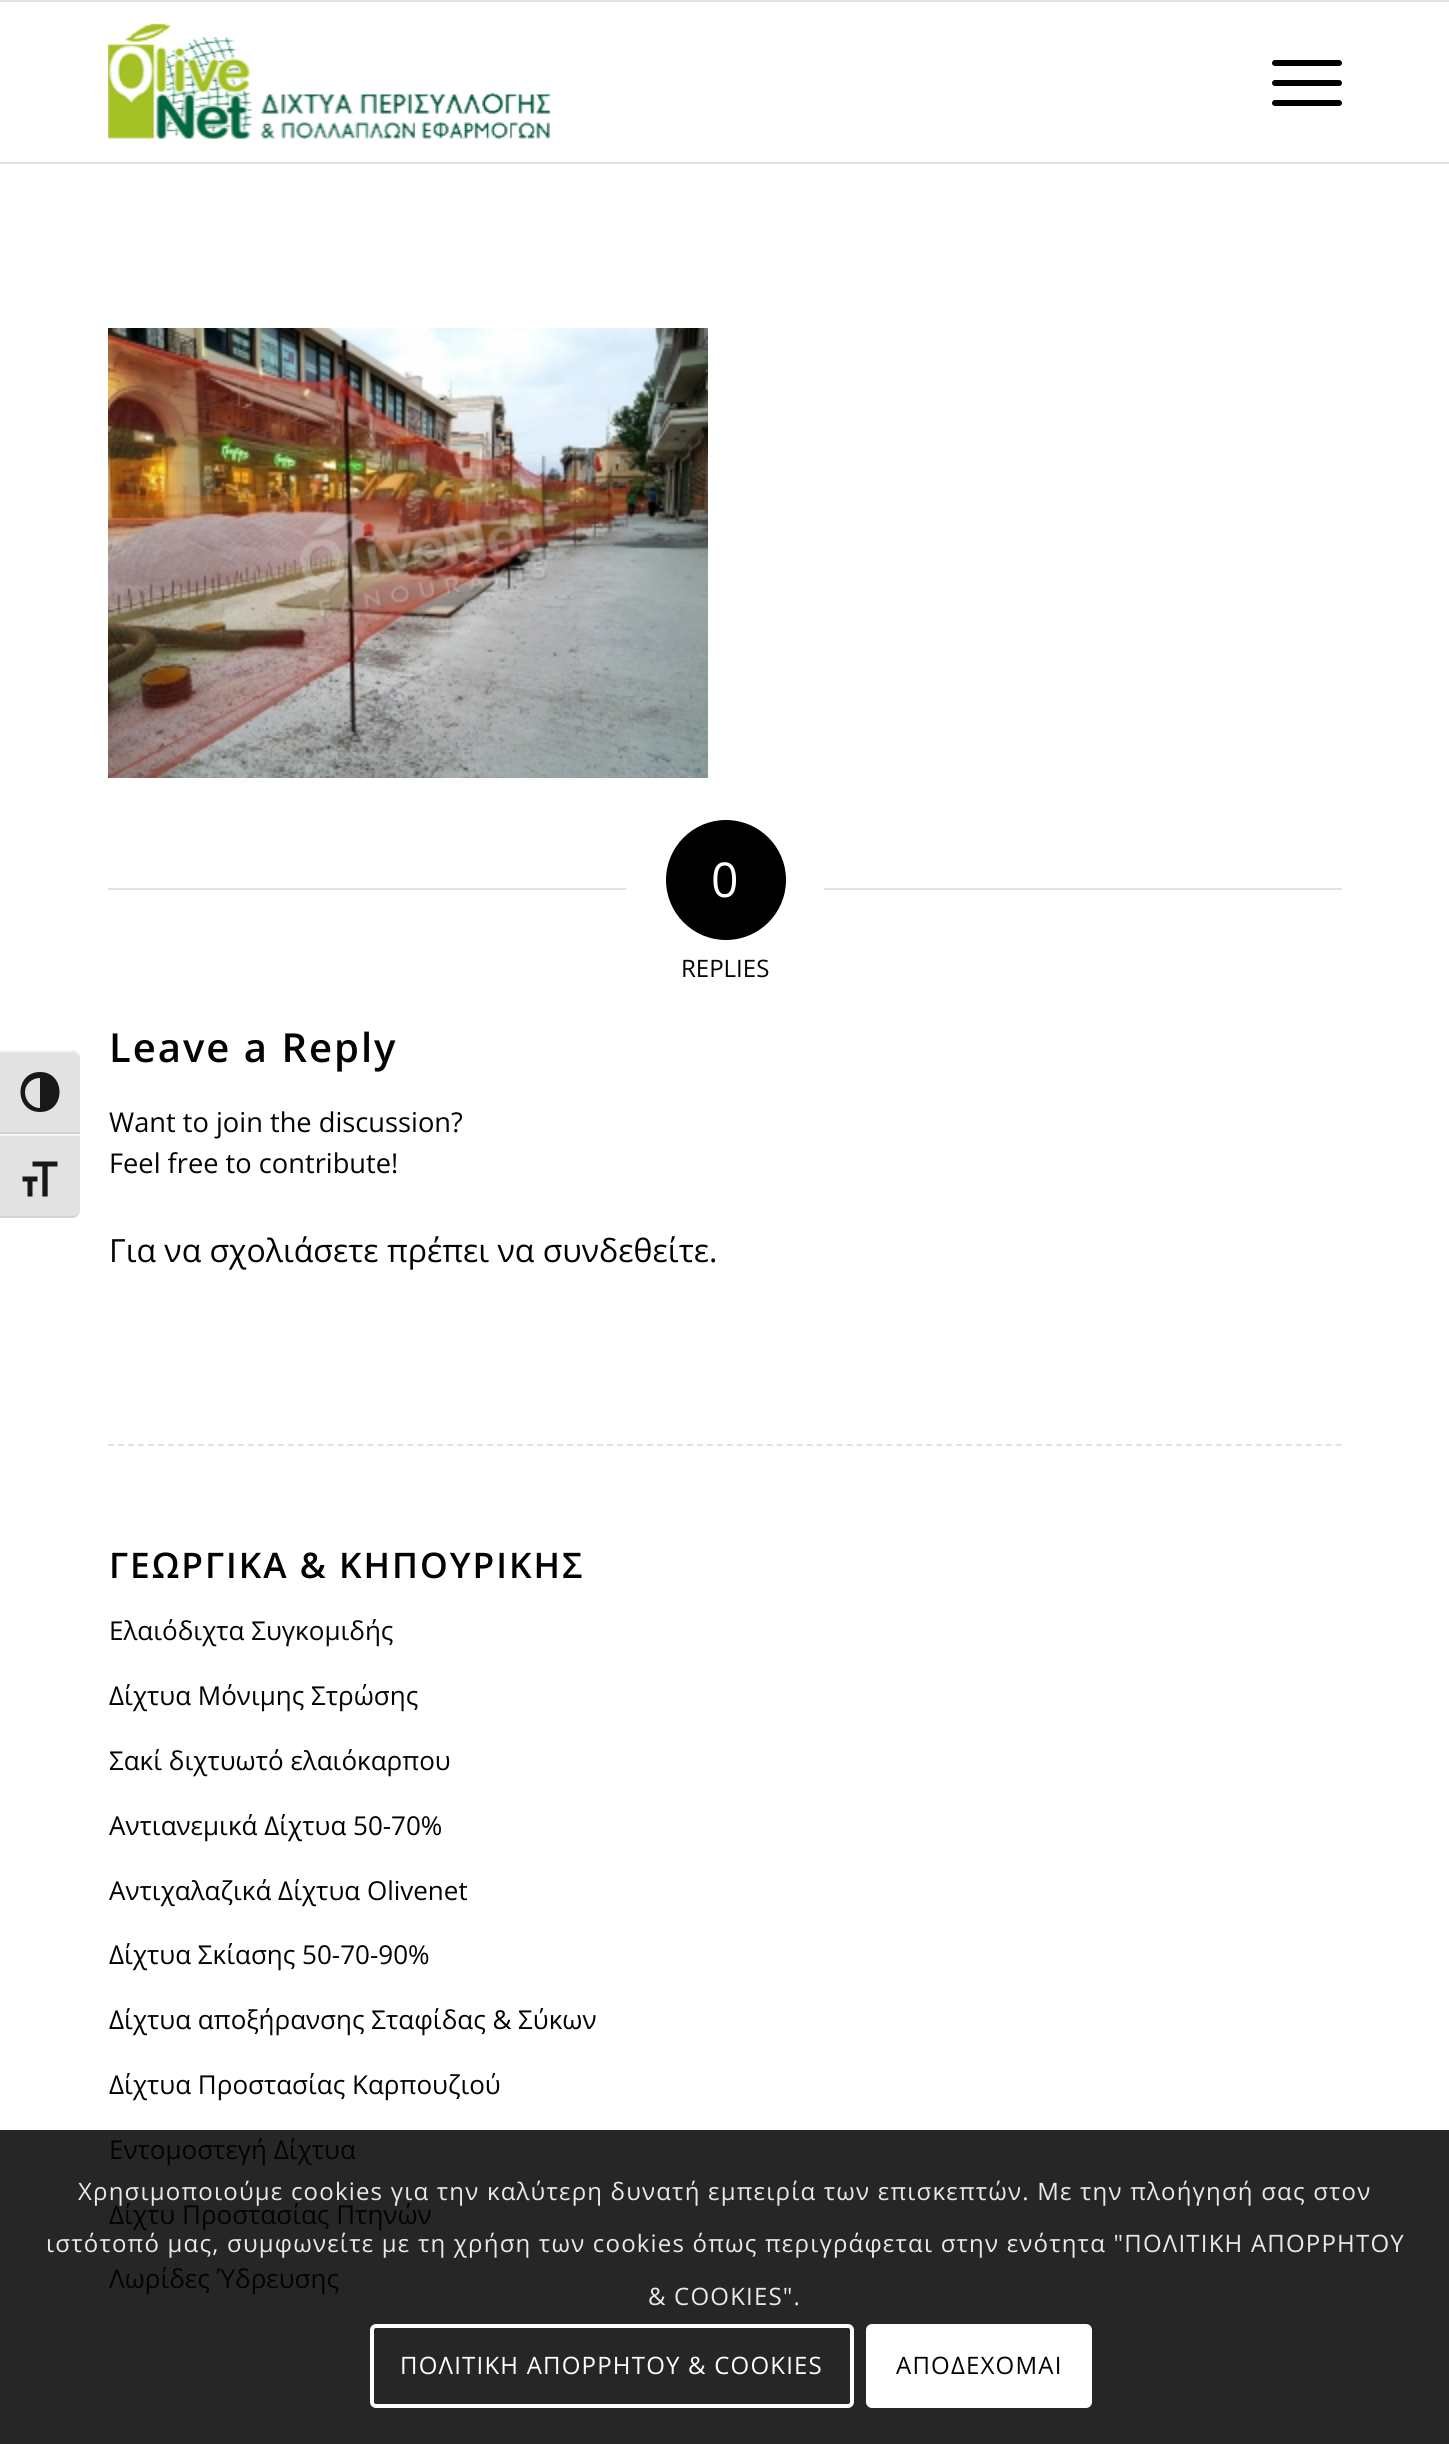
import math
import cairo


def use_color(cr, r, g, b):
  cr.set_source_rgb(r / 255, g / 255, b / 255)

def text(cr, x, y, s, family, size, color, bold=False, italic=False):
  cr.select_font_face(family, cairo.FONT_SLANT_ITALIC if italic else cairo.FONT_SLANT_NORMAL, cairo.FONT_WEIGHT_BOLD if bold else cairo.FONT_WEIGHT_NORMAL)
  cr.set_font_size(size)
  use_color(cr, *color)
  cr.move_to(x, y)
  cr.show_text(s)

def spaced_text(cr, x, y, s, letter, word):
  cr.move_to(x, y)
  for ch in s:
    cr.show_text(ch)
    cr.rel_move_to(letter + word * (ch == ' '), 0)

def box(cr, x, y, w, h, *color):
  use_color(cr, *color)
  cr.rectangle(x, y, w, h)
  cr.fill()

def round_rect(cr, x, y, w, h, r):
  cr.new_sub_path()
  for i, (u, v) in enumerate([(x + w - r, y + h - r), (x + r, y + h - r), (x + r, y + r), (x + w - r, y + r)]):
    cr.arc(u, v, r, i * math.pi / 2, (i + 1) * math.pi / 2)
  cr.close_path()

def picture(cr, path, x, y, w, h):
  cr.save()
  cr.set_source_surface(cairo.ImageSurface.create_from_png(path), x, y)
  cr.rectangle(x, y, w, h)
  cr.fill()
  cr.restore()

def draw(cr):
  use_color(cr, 255, 255, 255)
  cr.paint()
  use_color(cr, 226, 226, 226)
  cr.new_path()
  cr.move_to(0, 1050)
  cr.line_to(72, 1050)
  cr.curve_to(76.5, 1050, 80, 1053.5, 80, 1058)
  cr.line_to(80, 1134)
  cr.line_to(0, 1134)
  cr.close_path()
  cr.fill()
  use_color(cr, 245, 245, 245)
  cr.new_path()
  cr.move_to(0, 1050)
  cr.line_to(0, 1052)
  cr.line_to(72, 1052)
  cr.curve_to(76, 1052, 80, 1055, 80, 1058)
  cr.curve_to(80, 1054, 76, 1050, 72, 1050)
  cr.close_path()
  cr.fill()
  box(cr, 0, 1132, 80, 2, 210, 210, 210)
  use_color(cr, 24, 24, 24)
  cr.new_path()
  cr.move_to(40, 1072)
  cr.curve_to(14, 1072, 14, 1112, 40, 1112)
  cr.curve_to(66, 1112, 66, 1072, 40, 1072)
  cr.close_path()
  cr.move_to(25, 1092)
  cr.curve_to(25, 1084, 32, 1078, 40, 1078)
  cr.line_to(40, 1108)
  cr.curve_to(32, 1108, 25, 1101, 25, 1092)
  cr.close_path()
  cr.fill()
  use_color(cr, 226, 226, 226)
  cr.new_path()
  cr.move_to(0, 1134)
  cr.line_to(80, 1134)
  cr.line_to(80, 1210)
  cr.curve_to(80, 1214.5, 76.5, 1218, 72, 1218)
  cr.line_to(0, 1218)
  cr.close_path()
  cr.fill()
  box(cr, 0, 1134, 80, 2, 245, 245, 245)
  use_color(cr, 210, 210, 210)
  cr.new_path()
  cr.move_to(0, 1216)
  cr.line_to(0, 1218)
  cr.line_to(72, 1218)
  cr.curve_to(76, 1218, 80, 1214, 80, 1210)
  cr.curve_to(80, 1213, 76, 1216, 72, 1216)
  cr.close_path()
  cr.fill()
  picture(cr, "img_01.png", 22, 1161, 36, 36)
  box(cr, 0, 2130, 1449, 314, 38, 38, 38)
  box(cr, 0, 0, 1449, 2, 225, 225, 225)
  box(cr, 0, 162, 1449, 2, 225, 225, 225)
  picture(cr, "img_02.png", 108, 23, 442, 117)
  use_color(cr, 0, 0, 0)
  round_rect(cr, 1272, 80, 70, 6, 3)
  cr.fill()
  round_rect(cr, 1272, 60, 70, 6, 3)
  cr.fill()
  round_rect(cr, 1272, 100, 70, 6, 3)
  cr.fill()
  picture(cr, "img_03.png", 108, 328, 600, 450)
  box(cr, 108, 888, 518, 2, 225, 225, 225)
  use_color(cr, 0, 0, 0)
  cr.arc(726, 880, 60, 0, 2 * math.pi)
  cr.fill()
  box(cr, 824, 888, 518, 2, 225, 225, 225)
  cr.new_path()
  cr.move_to(108, 1445)
  cr.line_to(1342, 1445)
  cr.set_dash([6, 3.98])
  cr.stroke()
  round_rect(cr, 372, 2326, 480, 80, 4)
  use_color(cr, 255, 255, 255)
  cr.set_line_width(4)
  cr.set_dash([])
  cr.stroke()
  round_rect(cr, 866, 2324, 226, 84, 6)
  cr.fill()
  text(cr, 711, 897, "0", "Open Sans", 48, (255, 255, 255))
  text(cr, 681, 977, "REPLIES", "Open Sans", 24, (3, 3, 3))
  cr.select_font_face("Open Sans SemiBold")
  cr.set_font_size(40)
  spaced_text(cr, 109, 1062, "Leave a Reply", 2, 0)
  text(cr, 109, 1132, "Want to join the discussion?", "Open Sans", 27.25, (3, 3, 3))
  text(cr, 109, 1173, "Feel free to contribute!", "Open Sans", 27.25, (3, 3, 3))
  text(cr, 109, 1262, "Για να σχολιάσετε πρέπει να συνδεθείτε.", "Open Sans", 32, (3, 3, 3))
  cr.select_font_face("Open Sans SemiBold")
  cr.set_font_size(35.25)
  spaced_text(cr, 109, 1578, "ΓΕΩΡΓΙΚΑ & ΚΗΠΟΥΡΙΚΗΣ", 2, 0)
  text(cr, 109, 1640, "Ελαιόδιχτα Συγκομιδής", "Open Sans", 26, (3, 3, 3))
  text(cr, 109, 1705, "Δίχτυα Μόνιμης Στρώσης", "Open Sans", 26, (3, 3, 3))
  text(cr, 109, 1770, "Σακί διχτυωτό ελαιόκαρπου", "Open Sans", 26, (3, 3, 3))
  text(cr, 109, 1835, "Αντιανεμικά Δίχτυα 50-70%", "Open Sans", 26, (3, 3, 3))
  text(cr, 109, 1900, "Αντιχαλαζικά Δίχτυα Olivenet", "Open Sans", 26, (3, 3, 3))
  text(cr, 109, 1964, "Δίχτυα Σκίασης 50-70-90%", "Open Sans", 26, (3, 3, 3))
  text(cr, 109, 2029, "Δίχτυα αποξήρανσης Σταφίδας & Σύκων", "Open Sans", 26, (3, 3, 3))
  text(cr, 109, 2094, "Δίχτυα Προστασίας Καρπουζιού", "Open Sans", 26, (3, 3, 3))
  text(cr, 109, 2159, "Εντομοστεγή Δίχτυα", "Open Sans", 26, (3, 3, 3))
  text(cr, 109, 2224, "Δίχτυ Προστασίας Πτηνών", "Open Sans", 26, (3, 3, 3))
  text(cr, 109, 2288, "Λωρίδες Ύδρευσης", "Open Sans", 26, (3, 3, 3))
  cr.set_font_size(24)
  use_color(cr, 233, 233, 233)
  spaced_text(cr, 78, 2200, "Χρησιμοποιούμε cookies για την καλύτερη δυνατή εμπειρία των επισκεπτών. Με την πλοήγησή σας στον", 1.2, 0)
  spaced_text(cr, 46, 2252, "ιστότοπό μας, συμφωνείτε με τη χρήση των cookies όπως περιγράφεται στην ενότητα \"ΠΟΛΙΤΙΚΗ ΑΠΟΡΡΗΤΟΥ", 1.2, 0)
  spaced_text(cr, 648, 2305, "& COOKIES\".", 1.2, 0)
  use_color(cr, 255, 255, 255)
  spaced_text(cr, 400, 2374, "ΠΟΛΙΤΙΚΗ ΑΠΟΡΡΗΤΟΥ & COOKIES", 1.2, 0)
  use_color(cr, 3, 3, 3)
  spaced_text(cr, 896, 2374, "ΑΠΟΔΕΧΟΜΑΙ", 1.2, 0)


surface = cairo.ImageSurface(cairo.FORMAT_RGB24, 1449, 2444)
cr = cairo.Context(surface)
options = cairo.FontOptions()
options.set_hint_metrics(cairo.HINT_METRICS_OFF)
options.set_hint_style(cairo.HINT_STYLE_NONE)
cr.set_font_options(options)
cr.set_miter_limit(4)
draw(cr)
surface.write_to_png("out.png")
